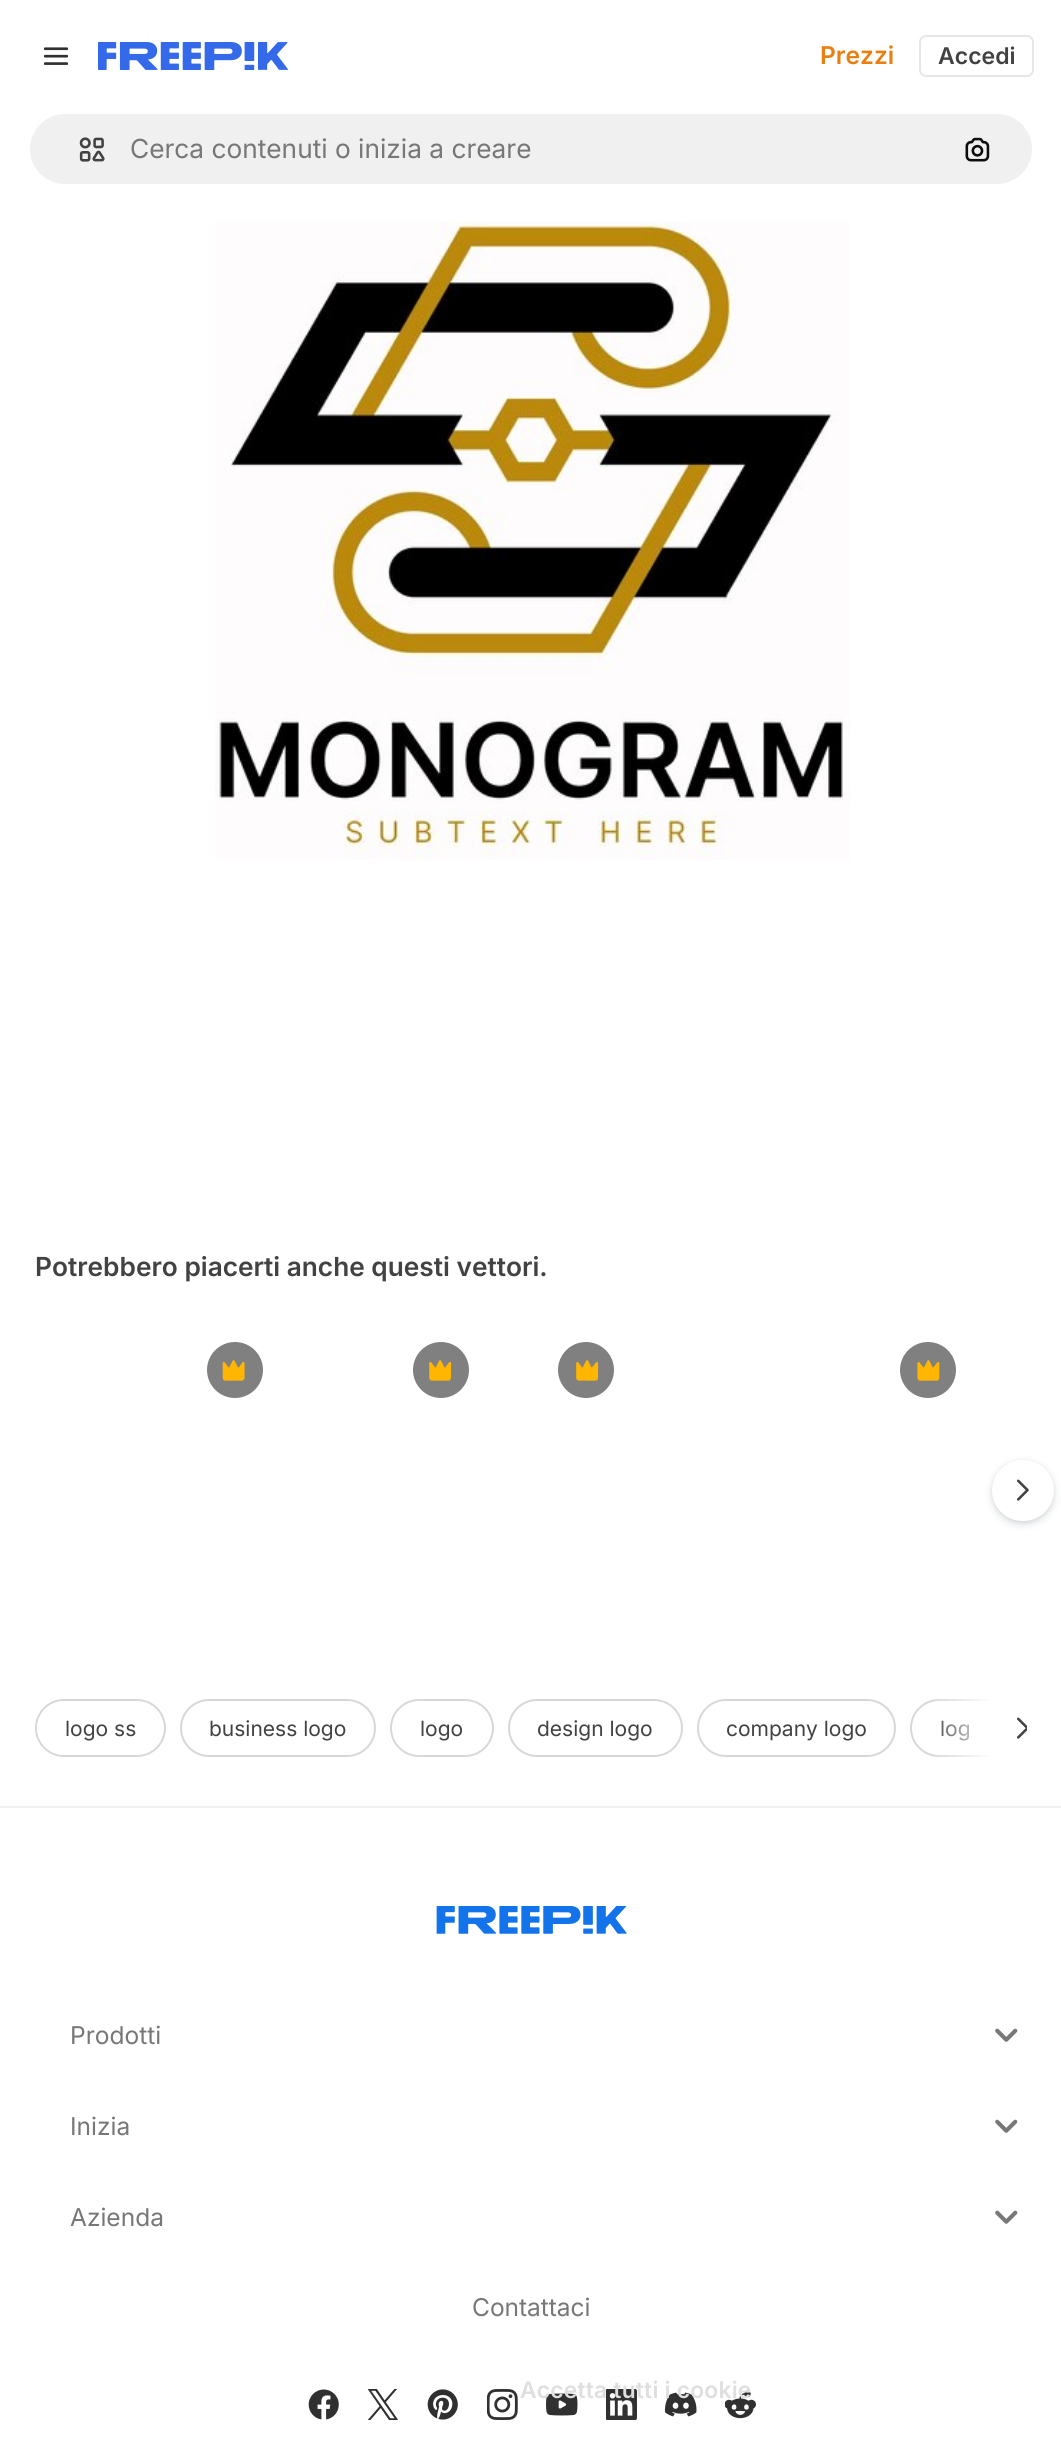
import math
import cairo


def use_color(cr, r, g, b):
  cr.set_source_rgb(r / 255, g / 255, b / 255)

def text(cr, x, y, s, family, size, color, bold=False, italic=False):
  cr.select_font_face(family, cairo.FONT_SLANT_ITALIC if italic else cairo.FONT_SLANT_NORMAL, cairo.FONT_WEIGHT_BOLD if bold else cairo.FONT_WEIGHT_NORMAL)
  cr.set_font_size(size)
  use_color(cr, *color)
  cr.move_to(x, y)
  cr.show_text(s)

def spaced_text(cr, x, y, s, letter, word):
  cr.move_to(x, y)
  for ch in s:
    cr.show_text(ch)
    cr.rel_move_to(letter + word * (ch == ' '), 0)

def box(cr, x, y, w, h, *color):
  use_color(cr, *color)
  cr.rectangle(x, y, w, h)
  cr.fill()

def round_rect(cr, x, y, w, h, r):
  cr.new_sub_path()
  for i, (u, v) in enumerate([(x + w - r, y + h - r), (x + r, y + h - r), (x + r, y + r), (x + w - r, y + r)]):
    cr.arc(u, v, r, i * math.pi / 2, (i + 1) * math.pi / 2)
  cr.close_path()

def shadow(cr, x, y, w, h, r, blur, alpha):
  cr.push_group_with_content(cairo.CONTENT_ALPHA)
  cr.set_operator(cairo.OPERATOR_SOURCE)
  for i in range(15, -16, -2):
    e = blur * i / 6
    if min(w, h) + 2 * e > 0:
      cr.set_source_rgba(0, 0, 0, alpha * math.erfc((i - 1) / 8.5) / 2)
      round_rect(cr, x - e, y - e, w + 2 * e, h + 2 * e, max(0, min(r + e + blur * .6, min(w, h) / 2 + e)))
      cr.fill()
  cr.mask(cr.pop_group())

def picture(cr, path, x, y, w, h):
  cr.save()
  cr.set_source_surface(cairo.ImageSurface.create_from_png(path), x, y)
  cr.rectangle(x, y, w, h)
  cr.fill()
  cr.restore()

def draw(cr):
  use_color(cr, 255, 255, 255)
  cr.paint()
  picture(cr, "img_01.png", 44, 47, 24, 18)
  picture(cr, "img_02.png", 98, 42, 190, 28)
  round_rect(cr, 920, 36, 113, 40, 6)
  use_color(cr, 231, 231, 231)
  cr.stroke()
  use_color(cr, 240, 240, 240)
  round_rect(cr, 29, 113, 1004, 72, 36)
  cr.fill_preserve()
  use_color(cr, 255, 255, 255)
  cr.stroke()
  picture(cr, "img_03.png", 79, 137, 26, 25)
  picture(cr, "img_04.png", 965, 137, 25, 25)
  picture(cr, "img_05.png", 215, 221, 635, 639)
  use_color(cr, 128, 128, 128)
  cr.arc(235, 1370, 28, 0, 2 * math.pi)
  cr.fill()
  picture(cr, "img_06.png", 222, 1360, 23, 21)
  cr.arc(441, 1370, 28, 0, 2 * math.pi)
  cr.fill()
  picture(cr, "img_07.png", 429, 1360, 23, 21)
  cr.arc(586, 1370, 28, 0, 2 * math.pi)
  cr.fill()
  picture(cr, "img_07.png", 576, 1360, 23, 21)
  cr.arc(928, 1370, 28, 0, 2 * math.pi)
  cr.fill()
  picture(cr, "img_08.png", 917, 1360, 23, 21)
  use_color(cr, 55, 73, 87)
  shadow(cr, 992, 1463, 62, 61, 30.5, 4.5, 0.15)
  shadow(cr, 992, 1461, 62, 62, 31, 2, 0.1)
  use_color(cr, 255, 255, 255)
  round_rect(cr, 992, 1460, 62, 61, 30.5)
  cr.fill()
  picture(cr, "img_09.png", 1017, 1479, 12, 22)
  round_rect(cr, 36, 1700, 129, 56, 28)
  use_color(cr, 216, 216, 216)
  cr.stroke()
  round_rect(cr, 181, 1700, 194, 56, 28)
  cr.stroke()
  round_rect(cr, 391, 1700, 102, 56, 28)
  cr.stroke()
  round_rect(cr, 509, 1700, 173, 56, 28)
  cr.stroke()
  round_rect(cr, 698, 1700, 197, 56, 28)
  cr.stroke()
  cr.save()
  cr.rectangle(35, 1699, 992, 58)
  cr.clip()
  round_rect(cr, 911, 1700, 145, 56, 28)
  cr.stroke()
  cr.restore()
  box(cr, 992, 1699, 35, 58, 255, 255, 255)
  picture(cr, "img_10.png", 1017, 1717, 10, 22)
  box(cr, 0, 1806, 1061, 2, 240, 240, 240)
  picture(cr, "img_11.png", 436, 1906, 191, 28)
  picture(cr, "img_12.png", 995, 2028, 23, 14)
  picture(cr, "img_12.png", 995, 2119, 23, 14)
  picture(cr, "img_12.png", 995, 2210, 23, 14)
  picture(cr, "img_13.png", 308, 2389, 31, 31)
  picture(cr, "img_14.png", 368, 2389, 30, 31)
  picture(cr, "img_15.png", 427, 2389, 31, 31)
  picture(cr, "img_16.png", 487, 2389, 31, 31)
  picture(cr, "img_17.png", 546, 2393, 32, 23)
  picture(cr, "img_18.png", 606, 2389, 31, 31)
  picture(cr, "img_19.png", 665, 2392, 32, 25)
  picture(cr, "img_20.png", 725, 2390, 31, 29)
  text(cr, 820, 64, "Prezzi", "Inter SemiBold", 24.5, (234, 126, 17))
  text(cr, 938, 64, "Accedi", "Inter SemiBold", 23, (66, 66, 66))
  text(cr, 130, 158, "Cerca contenuti o inizia a creare", "Inter", 26.25, (119, 119, 119))
  text(cr, 35, 1276, "Potrebbero piacerti anche questi vettori.", "Inter SemiBold", 26.25, (66, 66, 66))
  text(cr, 65, 1736, "logo ss", "Inter", 21, (66, 66, 66))
  text(cr, 209, 1736, "business logo", "Inter", 21, (66, 66, 66))
  text(cr, 420, 1736, "logo", "Inter", 21, (66, 66, 66))
  text(cr, 537, 1736, "design logo", "Inter", 21, (66, 66, 66))
  text(cr, 726, 1736, "company logo", "Inter", 21, (66, 66, 66))
  text(cr, 940, 1736, "log", "Inter", 21, (66, 66, 66))
  gradient = cairo.LinearGradient(992, 1728, 931, 1728)
  gradient.add_color_stop_rgba(0, 1, 1, 1, 1)
  gradient.add_color_stop_rgba(1, 1, 1, 1, 0)
  cr.set_source(gradient)
  cr.rectangle(935, 1699, 57, 58)
  cr.fill()
  text(cr, 70, 2044, "Prodotti", "Inter", 24.5, (119, 119, 119))
  text(cr, 70, 2135, "Inizia", "Inter", 24.5, (119, 119, 119))
  text(cr, 70, 2226, "Azienda", "Inter", 24.5, (119, 119, 119))
  text(cr, 472, 2316, "Contattaci", "Inter", 24.5, (119, 119, 119))
  cr.select_font_face("Inter SemiBold")
  cr.set_font_size(22.75)
  use_color(cr, 223, 223, 223)
  spaced_text(cr, 520, 2398, "Accetta tutti i cookie", 0.25, 0)


surface = cairo.ImageSurface(cairo.FORMAT_RGB24, 1061, 2462)
cr = cairo.Context(surface)
options = cairo.FontOptions()
options.set_hint_metrics(cairo.HINT_METRICS_OFF)
options.set_hint_style(cairo.HINT_STYLE_NONE)
cr.set_font_options(options)
cr.set_miter_limit(4)
draw(cr)
surface.write_to_png("out.png")
